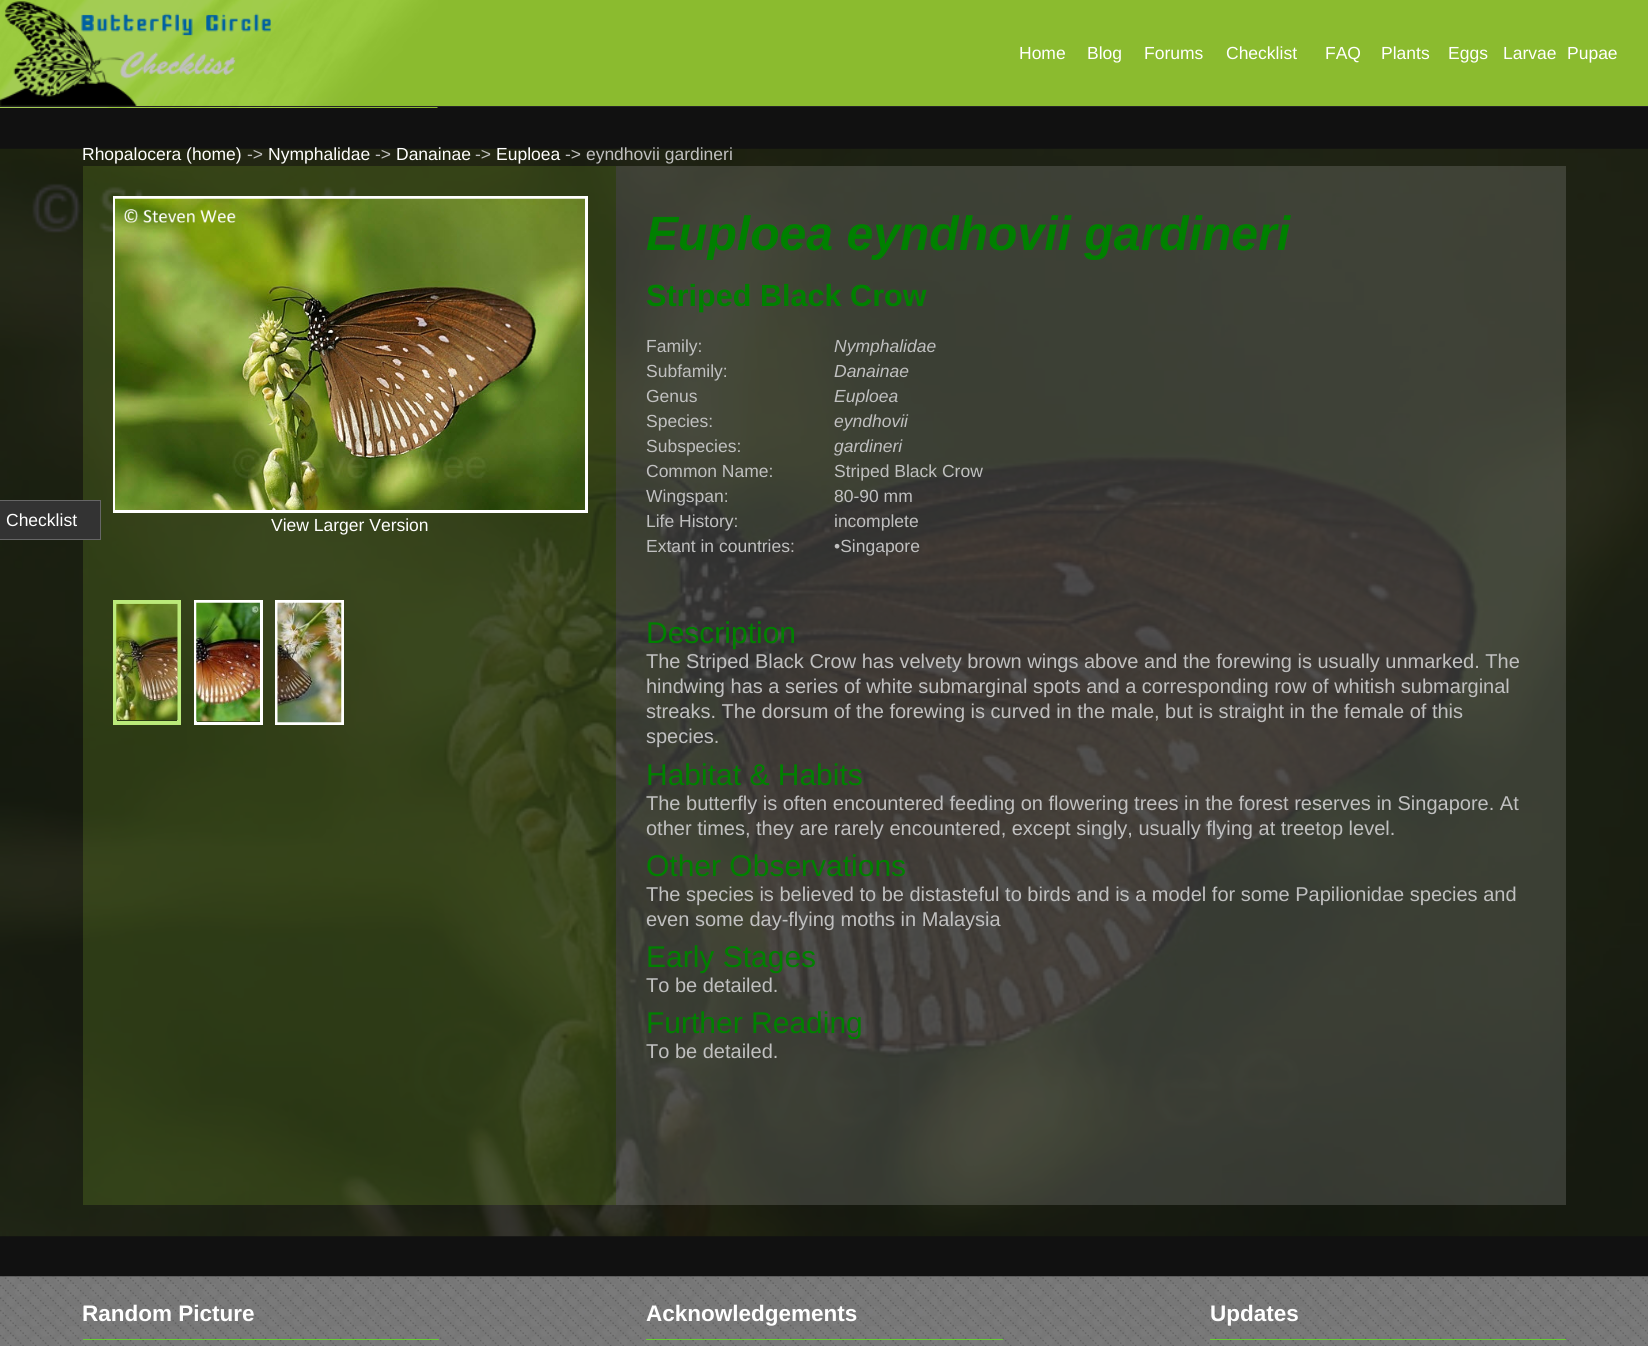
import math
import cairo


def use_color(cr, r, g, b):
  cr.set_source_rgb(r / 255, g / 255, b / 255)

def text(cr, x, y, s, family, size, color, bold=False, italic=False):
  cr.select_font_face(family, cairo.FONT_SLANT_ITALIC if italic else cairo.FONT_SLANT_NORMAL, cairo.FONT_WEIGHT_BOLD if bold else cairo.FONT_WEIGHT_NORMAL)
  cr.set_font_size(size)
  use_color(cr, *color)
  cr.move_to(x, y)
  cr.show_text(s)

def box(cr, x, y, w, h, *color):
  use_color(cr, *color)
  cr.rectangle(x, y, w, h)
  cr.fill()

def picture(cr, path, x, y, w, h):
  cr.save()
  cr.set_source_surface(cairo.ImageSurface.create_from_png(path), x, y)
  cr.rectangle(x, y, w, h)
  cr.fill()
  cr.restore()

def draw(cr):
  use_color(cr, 17, 17, 17)
  cr.paint()
  box(cr, 437, 0, 1211, 106, 139, 187, 47)
  picture(cr, "img_02.png", 0, 0, 438, 108)
  picture(cr, "img_01.png", 0, 1, 271, 105)
  box(cr, 0, 106, 1648, 1, 37, 37, 37)
  picture(cr, "img_07.png", 0, 148, 1648, 1089)
  cr.set_source_rgba(0.545, 0.733, 0.184, 0.2)
  cr.rectangle(83, 166, 533, 1039)
  cr.fill()
  box(cr, 0, 501, 100, 38, 51, 51, 51)
  box(cr, 0, 500, 101, 1, 102, 102, 102)
  box(cr, 100, 500, 1, 40, 102, 102, 102)
  box(cr, 0, 539, 101, 1, 102, 102, 102)
  cr.rectangle(114.5, 197.5, 472, 314)
  use_color(cr, 255, 255, 255)
  cr.set_line_width(3)
  cr.stroke()
  picture(cr, "img_03.png", 115, 198, 470, 312)
  cr.rectangle(115, 602, 64, 121)
  use_color(cr, 187, 234, 122)
  cr.set_line_width(4)
  cr.stroke()
  picture(cr, "img_04.png", 116, 603, 62, 117)
  cr.rectangle(195.5, 601.5, 66, 122)
  use_color(cr, 255, 255, 255)
  cr.set_line_width(3)
  cr.stroke()
  picture(cr, "img_05.png", 196, 602, 64, 120)
  cr.rectangle(276.5, 601.5, 66, 122)
  cr.stroke()
  picture(cr, "img_06.png", 277, 602, 65, 121)
  cr.set_source_rgba(0.753, 0.753, 0.753, 0.2)
  cr.rectangle(616, 166, 950, 1039)
  cr.fill()
  picture(cr, "img_08.png", 0, 1276, 1648, 70)
  box(cr, 83, 1339, 356, 1, 102, 204, 51)
  box(cr, 646, 1339, 357, 1, 102, 204, 51)
  box(cr, 1210, 1339, 356, 1, 102, 204, 51)
  text(cr, 1019, 59, "Home", "Liberation Sans", 17.5, (255, 255, 255))
  text(cr, 1087, 59, "Blog", "Liberation Sans", 17.5, (255, 255, 255))
  text(cr, 1144, 59, "Forums", "Liberation Sans", 17.5, (255, 255, 255))
  text(cr, 1226, 59, "Checklist", "Liberation Sans", 17.5, (255, 255, 255))
  text(cr, 1325, 59, "FAQ", "Liberation Sans", 17.5, (255, 255, 255))
  text(cr, 1381, 59, "Plants", "Liberation Sans", 17.5, (255, 255, 255))
  text(cr, 1448, 59, "Eggs", "Liberation Sans", 17.5, (255, 255, 255))
  text(cr, 1503, 59, "Larvae", "Liberation Sans", 17.5, (255, 255, 255))
  text(cr, 1567, 59, "Pupae", "Liberation Sans", 17.5, (255, 255, 255))
  text(cr, 6, 526, "Checklist", "Liberation Sans", 17.5, (255, 255, 255))
  text(cr, 82, 160, "Rhopalocera (home)", "Liberation Sans", 17.5, (255, 255, 255))
  text(cr, 247, 160, "->", "Liberation Sans", 17.5, (192, 192, 192))
  text(cr, 268, 160, "Nymphalidae", "Liberation Sans", 17.5, (255, 255, 255))
  text(cr, 375, 160, "->", "Liberation Sans", 17.5, (192, 192, 192))
  text(cr, 396, 160, "Danainae", "Liberation Sans", 17.5, (255, 255, 255))
  text(cr, 475, 160, "->", "Liberation Sans", 17.5, (192, 192, 192))
  text(cr, 496, 160, "Euploea", "Liberation Sans", 17.5, (255, 255, 255))
  text(cr, 565, 160, "-> eyndhovii gardineri", "Liberation Sans", 17.5, (192, 192, 192))
  text(cr, 271, 531, "View Larger Version", "Liberation Sans", 17.5, (255, 255, 255))
  text(cr, 646, 250, "Euploea eyndhovii gardineri", "Liberation Sans", 48.1, (0, 128, 0), bold=True, italic=True)
  text(cr, 646, 306, "Striped Black Crow", "Liberation Sans", 30.6, (0, 128, 0), bold=True)
  text(cr, 646, 352, "Family:", "Liberation Sans", 17.5, (192, 192, 192))
  text(cr, 834, 352, "Nymphalidae", "Liberation Sans", 17.5, (192, 192, 192), italic=True)
  text(cr, 646, 377, "Subfamily:", "Liberation Sans", 17.5, (192, 192, 192))
  text(cr, 834, 377, "Danainae", "Liberation Sans", 17.5, (192, 192, 192), italic=True)
  text(cr, 646, 402, "Genus", "Liberation Sans", 17.5, (192, 192, 192))
  text(cr, 834, 402, "Euploea", "Liberation Sans", 17.5, (192, 192, 192), italic=True)
  text(cr, 646, 427, "Species:", "Liberation Sans", 17.5, (192, 192, 192))
  text(cr, 834, 427, "eyndhovii", "Liberation Sans", 17.5, (192, 192, 192), italic=True)
  text(cr, 646, 452, "Subspecies:", "Liberation Sans", 17.5, (192, 192, 192))
  text(cr, 834, 452, "gardineri", "Liberation Sans", 17.5, (192, 192, 192), italic=True)
  text(cr, 646, 477, "Common Name:", "Liberation Sans", 17.5, (192, 192, 192))
  text(cr, 834, 477, "Striped Black Crow", "Liberation Sans", 17.5, (192, 192, 192))
  text(cr, 646, 502, "Wingspan:", "Liberation Sans", 17.5, (192, 192, 192))
  text(cr, 834, 502, "80-90 mm", "Liberation Sans", 17.5, (192, 192, 192))
  text(cr, 646, 527, "Life History:", "Liberation Sans", 17.5, (192, 192, 192))
  text(cr, 834, 527, "incomplete", "Liberation Sans", 17.5, (192, 192, 192))
  text(cr, 646, 552, "Extant in countries:", "Liberation Sans", 17.5, (192, 192, 192))
  text(cr, 834, 552, "•Singapore", "Liberation Sans", 17.5, (192, 192, 192))
  text(cr, 646, 643, "Description", "Liberation Sans", 30, (0, 128, 0))
  text(cr, 646, 668, "The Striped Black Crow has velvety brown wings above and the forewing is usually unmarked. The", "Liberation Sans", 20, (192, 192, 192))
  text(cr, 646, 693, "hindwing has a series of white submarginal spots and a corresponding row of whitish submarginal", "Liberation Sans", 20, (192, 192, 192))
  text(cr, 646, 718, "streaks. The dorsum of the forewing is curved in the male, but is straight in the female of this", "Liberation Sans", 20, (192, 192, 192))
  text(cr, 646, 743, "species.", "Liberation Sans", 20, (192, 192, 192))
  text(cr, 646, 785, "Habitat & Habits", "Liberation Sans", 30, (0, 128, 0))
  text(cr, 646, 810, "The butterfly is often encountered feeding on flowering trees in the forest reserves in Singapore. At", "Liberation Sans", 20, (192, 192, 192))
  text(cr, 646, 835, "other times, they are rarely encountered, except singly, usually flying at treetop level.", "Liberation Sans", 20, (192, 192, 192))
  text(cr, 646, 876, "Other Observations", "Liberation Sans", 30, (0, 128, 0))
  text(cr, 646, 901, "The species is believed to be distasteful to birds and is a model for some Papilionidae species and", "Liberation Sans", 20, (192, 192, 192))
  text(cr, 646, 926, "even some day-flying moths in Malaysia", "Liberation Sans", 20, (192, 192, 192))
  text(cr, 646, 967, "Early Stages", "Liberation Sans", 30, (0, 128, 0))
  text(cr, 646, 992, "To be detailed.", "Liberation Sans", 20, (192, 192, 192))
  text(cr, 646, 1033, "Further Reading", "Liberation Sans", 30, (0, 128, 0))
  text(cr, 646, 1058, "To be detailed.", "Liberation Sans", 20, (192, 192, 192))
  text(cr, 82, 1321, "Random Picture", "Liberation Sans", 22.5, (255, 255, 255), bold=True)
  text(cr, 646, 1321, "Acknowledgements", "Liberation Sans", 22.5, (255, 255, 255), bold=True)
  text(cr, 1210, 1321, "Updates", "Liberation Sans", 22.5, (255, 255, 255), bold=True)


surface = cairo.ImageSurface(cairo.FORMAT_RGB24, 1648, 1346)
cr = cairo.Context(surface)
options = cairo.FontOptions()
options.set_hint_metrics(cairo.HINT_METRICS_OFF)
options.set_hint_style(cairo.HINT_STYLE_NONE)
cr.set_font_options(options)
cr.set_miter_limit(4)
draw(cr)
surface.write_to_png("out.png")
